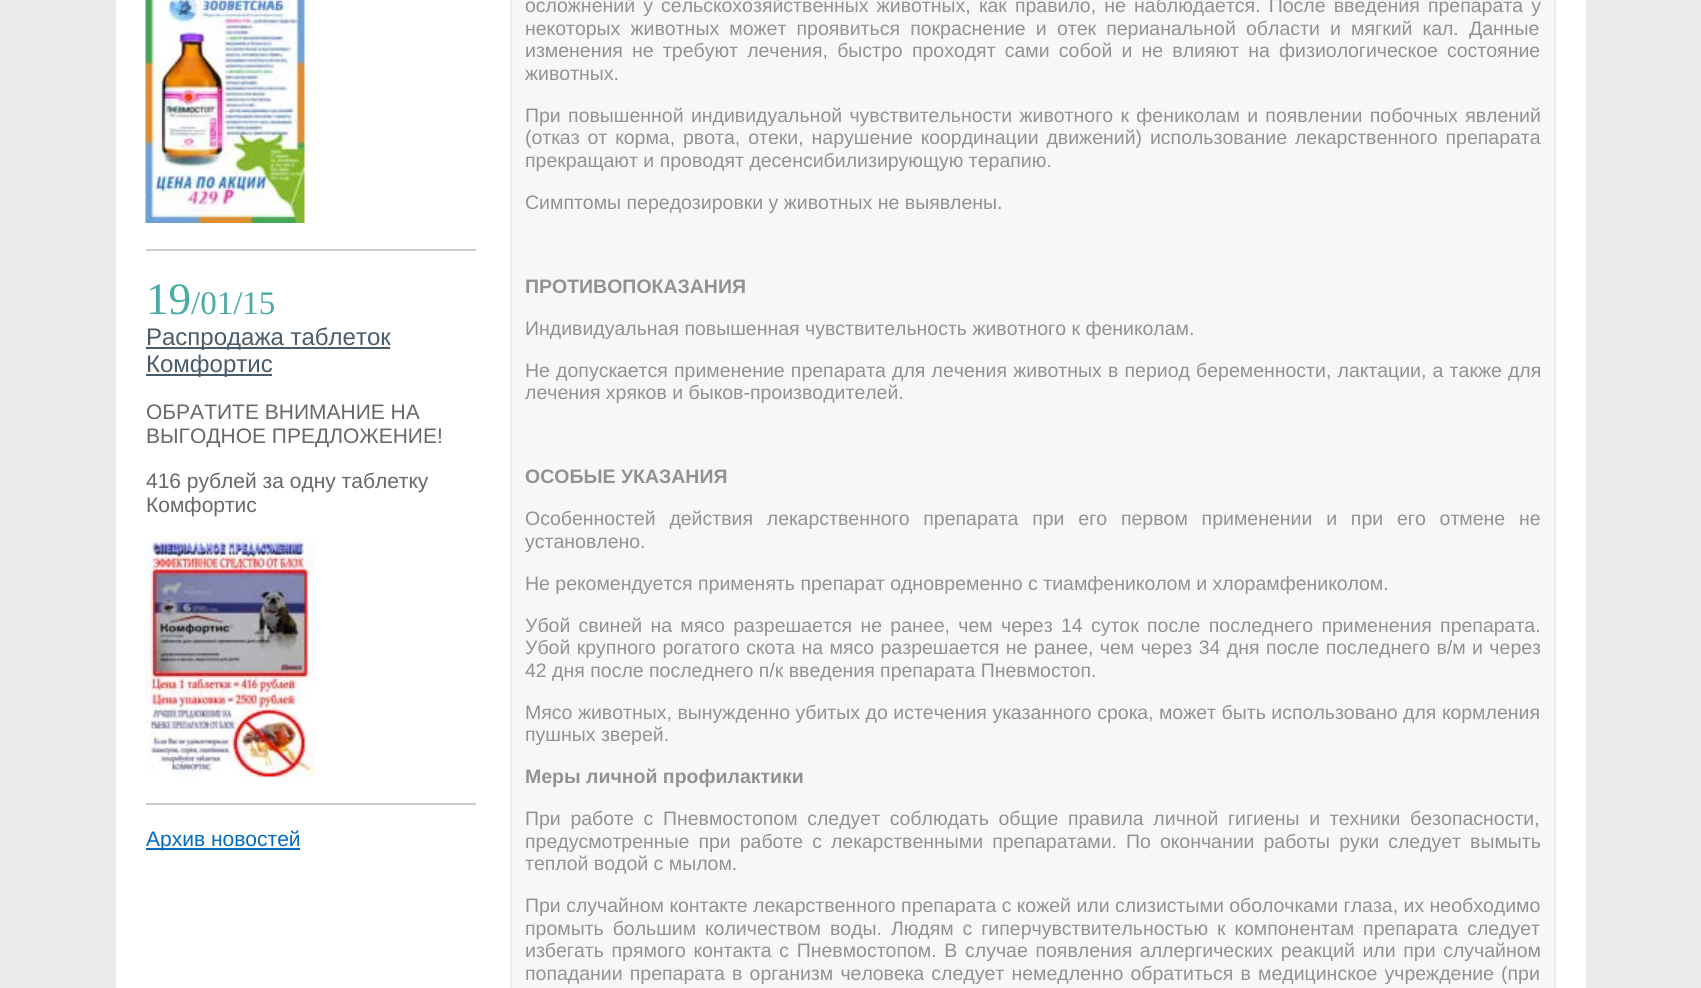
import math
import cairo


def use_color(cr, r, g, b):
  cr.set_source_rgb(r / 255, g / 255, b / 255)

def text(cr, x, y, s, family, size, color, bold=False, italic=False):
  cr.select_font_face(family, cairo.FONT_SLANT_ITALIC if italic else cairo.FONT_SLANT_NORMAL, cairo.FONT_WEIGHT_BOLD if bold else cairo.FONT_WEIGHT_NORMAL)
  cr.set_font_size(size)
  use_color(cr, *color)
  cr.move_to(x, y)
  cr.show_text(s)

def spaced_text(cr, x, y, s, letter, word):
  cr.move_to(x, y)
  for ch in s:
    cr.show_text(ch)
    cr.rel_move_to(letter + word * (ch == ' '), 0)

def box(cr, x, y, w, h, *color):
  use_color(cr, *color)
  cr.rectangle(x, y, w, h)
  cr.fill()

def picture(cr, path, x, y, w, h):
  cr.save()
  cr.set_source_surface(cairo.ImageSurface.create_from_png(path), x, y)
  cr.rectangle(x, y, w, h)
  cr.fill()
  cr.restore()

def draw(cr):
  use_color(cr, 234, 234, 234)
  cr.paint()
  box(cr, 116, 0, 1470, 988, 255, 255, 255)
  box(cr, 146, 249, 330, 2, 204, 204, 204)
  picture(cr, "img_01.png", 145, 0, 160, 223)
  box(cr, 146, 803, 330, 2, 204, 204, 204)
  box(cr, 146, 347, 244, 2, 74, 91, 106)
  box(cr, 146, 374, 126, 2, 74, 91, 106)
  picture(cr, "img_02.png", 145, 536, 170, 241)
  box(cr, 146, 848, 154, 2, 1, 107, 195)
  use_color(cr, 247, 247, 247)
  cr.rectangle(511, -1, 1044, 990)
  cr.fill_preserve()
  use_color(cr, 237, 237, 237)
  cr.stroke()
  text(cr, 146, 314, "19", "Liberation Serif", 45, (75, 171, 166))
  text(cr, 191, 314, "/01/15", "Liberation Serif", 33, (75, 171, 166))
  text(cr, 146, 345, "Распродажа таблеток", "Liberation Sans", 24, (74, 91, 106))
  text(cr, 146, 372, "Комфортис", "Liberation Sans", 24, (74, 91, 106))
  text(cr, 146, 419, "ОБРАТИТЕ ВНИМАНИЕ НА", "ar", 21, (104, 104, 104))
  text(cr, 146, 443, "ВЫГОДНОЕ ПРЕДЛОЖЕНИЕ!", "ar", 21, (104, 104, 104))
  text(cr, 146, 488, "416 рублей за одну таблетку", "ar", 21, (104, 104, 104))
  text(cr, 146, 512, "Комфортис", "ar", 21, (104, 104, 104))
  text(cr, 146, 846, "Архив новостей", "ar", 21, (1, 107, 195))
  cr.select_font_face("Liberation Sans")
  cr.set_font_size(19.5)
  use_color(cr, 146, 146, 146)
  spaced_text(cr, 525, 12, "осложнений у сельскохозяйственных животных, как правило, не наблюдается. После введения препарата у", 0, 2.75)
  spaced_text(cr, 525, 35, "некоторых животных может проявиться покраснение и отек перианальной области и мягкий кал. Данные", 0, 4.75)
  spaced_text(cr, 525, 57, "изменения не требуют лечения, быстро проходят сами собой и не влияют на физиологическое состояние", 0, 3.75)
  text(cr, 525, 80, "животных.", "Liberation Sans", 19.5, (146, 146, 146))
  spaced_text(cr, 525, 122, "При повышенной индивидуальной чувствительности животного к фениколам и появлении побочных явлений", 0, 1.9)
  spaced_text(cr, 525, 144, "(отказ от корма, рвота, отеки, нарушение координации движений) использование лекарственного препарата", 0, 2.5)
  text(cr, 525, 167, "прекращают и проводят десенсибилизирующую терапию.", "Liberation Sans", 19.5, (146, 146, 146))
  text(cr, 525, 209, "Симптомы передозировки у животных не выявлены.", "Liberation Sans", 19.5, (146, 146, 146))
  text(cr, 525, 293, "ПРОТИВОПОКАЗАНИЯ", "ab", 19.5, (146, 146, 146), bold=True)
  text(cr, 525, 335, "Индивидуальная повышенная чувствительность животного к фениколам.", "Liberation Sans", 19.5, (146, 146, 146))
  spaced_text(cr, 525, 377, "Не допускается применение препарата для лечения животных в период беременности, лактации, а также для", 0, 0.75)
  text(cr, 525, 399, "лечения хряков и быков-производителей.", "Liberation Sans", 19.5, (146, 146, 146))
  text(cr, 525, 483, "ОСОБЫЕ УКАЗАНИЯ", "ab", 19.5, (146, 146, 146), bold=True)
  cr.select_font_face("Liberation Sans")
  spaced_text(cr, 525, 525, "Особенностей действия лекарственного препарата при его первом применении и при его отмене не", 0, 8.4)
  text(cr, 525, 548, "установлено.", "Liberation Sans", 19.5, (146, 146, 146))
  text(cr, 525, 590, "Не рекомендуется применять препарат одновременно с тиамфениколом и хлорамфениколом.", "Liberation Sans", 19.5, (146, 146, 146))
  spaced_text(cr, 525, 632, "Убой свиней на мясо разрешается не ранее, чем через 14 суток после последнего применения препарата.", 0, 2.9)
  spaced_text(cr, 525, 654, "Убой крупного рогатого скота на мясо разрешается не ранее, чем через 34 дня после последнего в/м и через", 0, 1)
  text(cr, 525, 677, "42 дня после последнего п/к введения препарата Пневмостоп.", "Liberation Sans", 19.5, (146, 146, 146))
  spaced_text(cr, 525, 719, "Мясо животных, вынужденно убитых до истечения указанного срока, может быть использовано для кормления", 0, 0.1)
  text(cr, 525, 741, "пушных зверей.", "Liberation Sans", 19.5, (146, 146, 146))
  text(cr, 525, 783, "Меры личной профилактики", "ab", 19.5, (146, 146, 146), bold=True)
  cr.select_font_face("Liberation Sans")
  spaced_text(cr, 525, 825, "При работе с Пневмостопом следует соблюдать общие правила личной гигиены и техники безопасности,", 0, 4.25)
  spaced_text(cr, 525, 848, "предусмотренные при работе с лекарственными препаратами. По окончании работы руки следует вымыть", 0, 3.6)
  text(cr, 525, 870, "теплой водой с мылом.", "Liberation Sans", 19.5, (146, 146, 146))
  text(cr, 525, 912, "При случайном контакте лекарственного препарата с кожей или слизистыми оболочками глаза, их необходимо", "Liberation Sans", 19.5, (146, 146, 146))
  spaced_text(cr, 525, 935, "промыть большим количеством воды. Людям с гиперчувствительностью к компонентам препарата следует", 0, 3.5)
  spaced_text(cr, 525, 957, "избегать прямого контакта с Пневмостопом. В случае появления аллергических реакций или при случайном", 0, 2.25)
  spaced_text(cr, 525, 980, "попадании препарата в организм человека следует немедленно обратиться в медицинское учреждение (при", 0, 1.75)


surface = cairo.ImageSurface(cairo.FORMAT_RGB24, 1701, 988)
cr = cairo.Context(surface)
options = cairo.FontOptions()
options.set_hint_metrics(cairo.HINT_METRICS_OFF)
options.set_hint_style(cairo.HINT_STYLE_NONE)
cr.set_font_options(options)
cr.set_miter_limit(4)
draw(cr)
surface.write_to_png("out.png")
